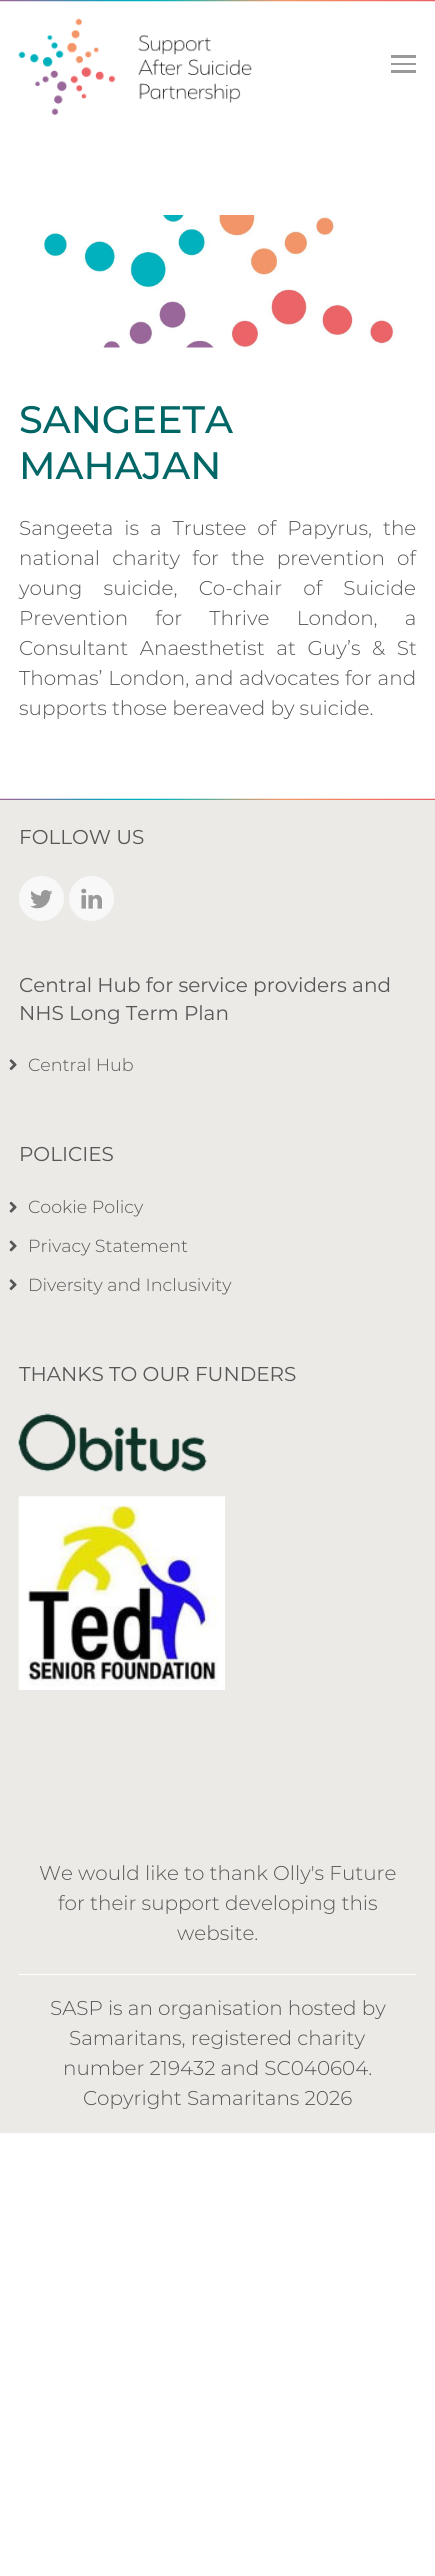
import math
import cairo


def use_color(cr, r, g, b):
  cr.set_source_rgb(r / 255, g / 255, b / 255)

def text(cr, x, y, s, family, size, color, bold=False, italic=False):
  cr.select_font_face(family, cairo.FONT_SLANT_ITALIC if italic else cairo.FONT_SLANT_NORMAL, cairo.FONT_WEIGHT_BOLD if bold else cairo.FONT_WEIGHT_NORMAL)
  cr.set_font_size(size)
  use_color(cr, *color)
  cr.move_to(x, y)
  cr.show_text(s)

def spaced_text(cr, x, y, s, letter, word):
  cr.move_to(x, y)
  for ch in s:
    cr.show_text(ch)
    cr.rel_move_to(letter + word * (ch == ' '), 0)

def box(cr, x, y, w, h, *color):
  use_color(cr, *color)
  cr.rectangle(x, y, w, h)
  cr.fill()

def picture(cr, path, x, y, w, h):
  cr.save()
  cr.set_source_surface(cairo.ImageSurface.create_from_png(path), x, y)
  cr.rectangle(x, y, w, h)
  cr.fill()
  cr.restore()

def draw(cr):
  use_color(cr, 255, 255, 255)
  cr.paint()
  picture(cr, "img_01.png", 0, 0, 435, 2)
  picture(cr, "img_02.png", 18, 18, 234, 97)
  box(cr, 391, 63, 25, 2, 153, 153, 153)
  box(cr, 391, 55, 25, 3, 153, 153, 153)
  box(cr, 391, 70, 25, 3, 153, 153, 153)
  picture(cr, "img_03.png", 40, 215, 355, 133)
  box(cr, 0, 800, 435, 1333, 235, 234, 230)
  picture(cr, "img_04.png", 0, 798, 435, 2)
  use_color(cr, 248, 248, 248)
  cr.arc(41.5, 898.5, 22.5, 0, 2 * math.pi)
  cr.fill()
  picture(cr, "img_05.png", 30, 890, 23, 19)
  cr.arc(91.5, 898.5, 22.5, 0, 2 * math.pi)
  cr.fill()
  picture(cr, "img_06.png", 81, 888, 21, 21)
  picture(cr, "img_07.png", 9, 1059, 8, 12)
  picture(cr, "img_08.png", 9, 1201, 8, 12)
  picture(cr, "img_09.png", 9, 1240, 8, 12)
  picture(cr, "img_07.png", 9, 1279, 8, 12)
  picture(cr, "img_10.png", 18, 1413, 189, 59)
  picture(cr, "img_11.png", 18, 1496, 207, 194)
  box(cr, 19, 1974, 397, 1, 255, 255, 255)
  text(cr, 19, 433, "SANGEETA", "Montserrat Medium", 38.25, (0, 102, 102))
  text(cr, 19, 479, "MAHAJAN", "Montserrat Medium", 38.25, (0, 102, 102))
  cr.select_font_face("Montserrat Light")
  cr.set_font_size(20)
  use_color(cr, 87, 87, 87)
  spaced_text(cr, 19, 535, "Sangeeta is a Trustee of Papyrus, the", 0, 5.75)
  spaced_text(cr, 19, 565, "national charity for the prevention of", 0, 7)
  spaced_text(cr, 19, 595, "young suicide, Co-chair of Suicide", 0, 16)
  spaced_text(cr, 19, 625, "Prevention for Thrive London, a", 0, 22)
  spaced_text(cr, 19, 655, "Consultant Anaesthetist at Guy’s & St", 0, 6.5)
  spaced_text(cr, 19, 685, "Thomas’ London, and advocates for and", 0, 0.5)
  text(cr, 19, 715, "supports those bereaved by suicide.", "Montserrat Light", 20, (87, 87, 87))
  text(cr, 19, 844, "FOLLOW US", "Montserrat", 20, (87, 87, 87))
  text(cr, 19, 992, "Central Hub for service providers and", "Montserrat", 20, (87, 87, 87))
  text(cr, 19, 1020, "NHS Long Term Plan", "Montserrat", 20, (87, 87, 87))
  text(cr, 28, 1071, "Central Hub", "Montserrat Light", 17.5, (87, 87, 87))
  text(cr, 19, 1161, "POLICIES", "Montserrat", 20, (87, 87, 87))
  text(cr, 28, 1213, "Cookie Policy", "Montserrat Light", 17.5, (87, 87, 87))
  text(cr, 28, 1252, "Privacy Statement", "Montserrat Light", 17.5, (87, 87, 87))
  text(cr, 28, 1291, "Diversity and Inclusivity", "Montserrat Light", 17.5, (87, 87, 87))
  text(cr, 19, 1381, "THANKS TO OUR FUNDERS", "Montserrat", 20, (87, 87, 87))
  text(cr, 39, 1880, "We would like to thank Olly's Future", "Montserrat Light", 20, (87, 87, 87))
  text(cr, 58, 1910, "for their support developing this", "Montserrat Light", 20, (87, 87, 87))
  text(cr, 177, 1940, "website.", "Montserrat Light", 20, (87, 87, 87))
  text(cr, 50, 2015, "SASP is an organisation hosted by", "Montserrat Light", 20, (87, 87, 87))
  text(cr, 69, 2045, "Samaritans, registered charity", "Montserrat Light", 20, (87, 87, 87))
  text(cr, 63, 2075, "number 219432 and SC040604.", "Montserrat Light", 20, (87, 87, 87))
  text(cr, 83, 2105, "Copyright Samaritans 2026", "Montserrat Light", 20, (87, 87, 87))


surface = cairo.ImageSurface(cairo.FORMAT_RGB24, 435, 2576)
cr = cairo.Context(surface)
options = cairo.FontOptions()
options.set_hint_metrics(cairo.HINT_METRICS_OFF)
options.set_hint_style(cairo.HINT_STYLE_NONE)
cr.set_font_options(options)
cr.set_miter_limit(4)
draw(cr)
surface.write_to_png("out.png")
